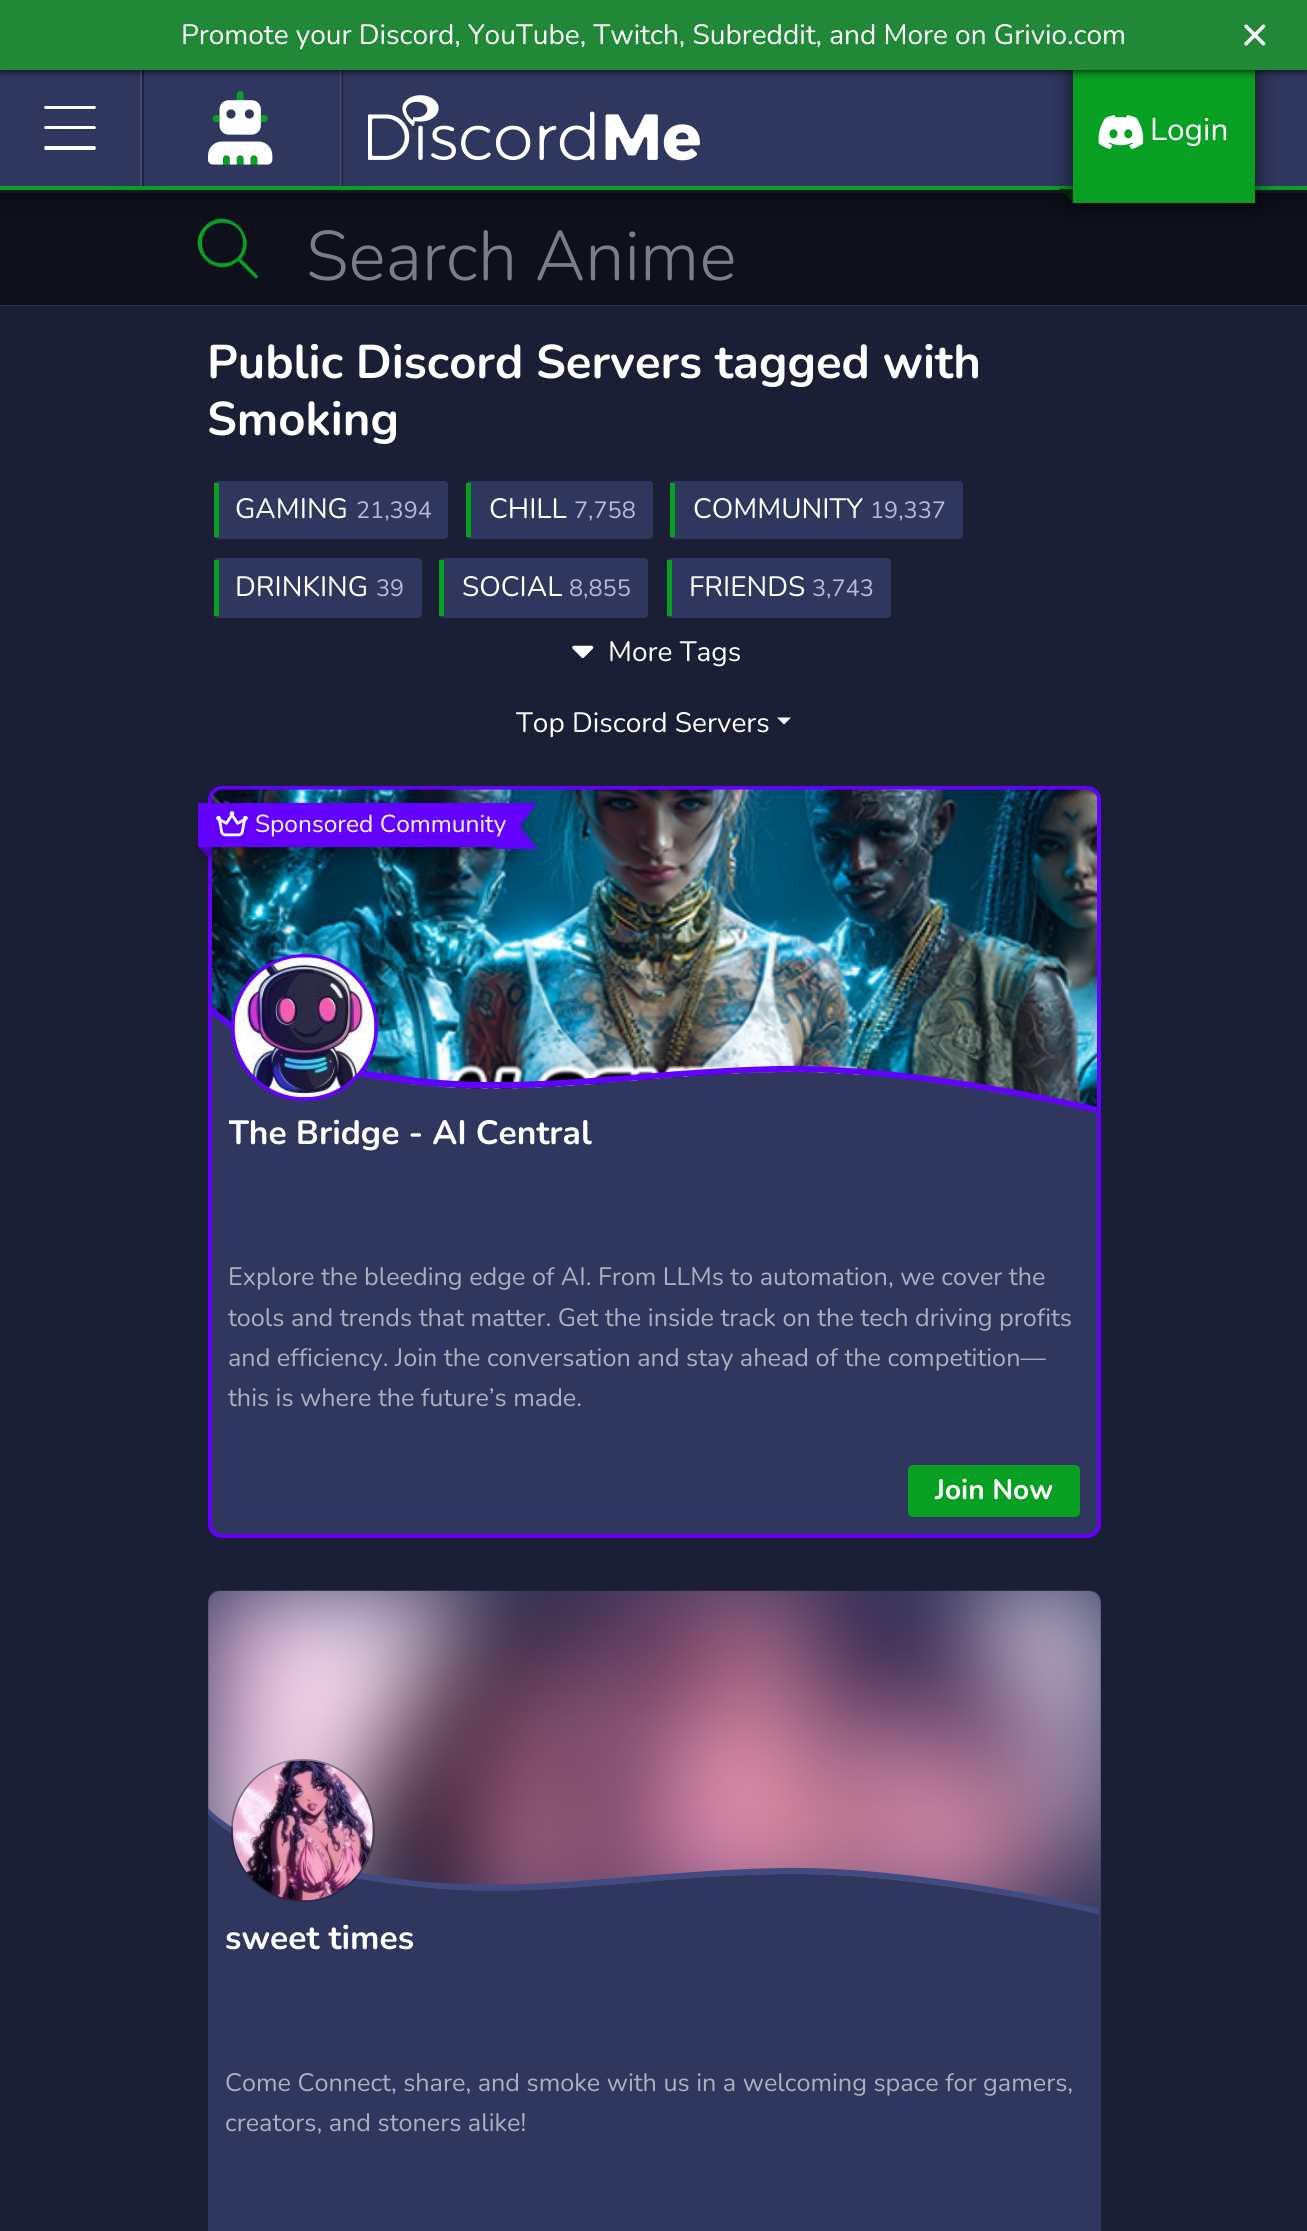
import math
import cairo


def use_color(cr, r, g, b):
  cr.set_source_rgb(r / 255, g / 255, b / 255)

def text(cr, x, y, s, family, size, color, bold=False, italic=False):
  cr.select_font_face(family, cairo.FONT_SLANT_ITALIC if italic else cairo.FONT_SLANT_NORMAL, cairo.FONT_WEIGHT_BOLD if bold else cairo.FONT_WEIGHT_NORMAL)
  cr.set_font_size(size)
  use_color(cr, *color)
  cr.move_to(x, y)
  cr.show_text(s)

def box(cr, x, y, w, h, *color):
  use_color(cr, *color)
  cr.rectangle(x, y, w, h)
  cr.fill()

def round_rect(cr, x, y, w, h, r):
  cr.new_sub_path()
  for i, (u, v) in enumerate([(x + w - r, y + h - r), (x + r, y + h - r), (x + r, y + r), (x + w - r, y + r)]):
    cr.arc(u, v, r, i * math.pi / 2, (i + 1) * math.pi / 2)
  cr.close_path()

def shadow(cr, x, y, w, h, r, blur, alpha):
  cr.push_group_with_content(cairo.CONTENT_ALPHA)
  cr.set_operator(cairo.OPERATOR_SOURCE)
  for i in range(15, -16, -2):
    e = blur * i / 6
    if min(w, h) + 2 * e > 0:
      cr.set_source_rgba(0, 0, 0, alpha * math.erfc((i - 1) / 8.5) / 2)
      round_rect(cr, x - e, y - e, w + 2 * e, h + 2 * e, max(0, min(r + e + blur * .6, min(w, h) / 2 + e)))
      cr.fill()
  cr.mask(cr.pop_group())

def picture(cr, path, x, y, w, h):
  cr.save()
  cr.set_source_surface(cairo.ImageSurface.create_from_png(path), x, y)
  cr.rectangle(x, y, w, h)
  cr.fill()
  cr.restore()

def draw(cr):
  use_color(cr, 27, 31, 54)
  cr.paint()
  box(cr, 0, 193, 1307, 112, 14, 16, 27)
  use_color(cr, 8, 160, 35)
  cr.new_path()
  cr.move_to(243, 243)
  cr.curve_to(243, 216, 202, 216, 202, 243)
  cr.curve_to(202, 270, 243, 270, 243, 243)
  cr.close_path()
  cr.move_to(238, 261)
  cr.curve_to(215, 281, 183, 248, 205, 226)
  cr.curve_to(227, 204, 260, 236, 241, 259)
  cr.curve_to(243, 261, 258, 275, 258, 277)
  cr.curve_to(257, 278, 256, 279, 255, 278)
  cr.close_path()
  cr.fill()
  use_color(cr, 0, 0, 0)
  shadow(cr, 0, 4, 1307, 189, 0, 17.5, 0.5)
  box(cr, 0, 70, 1307, 116, 48, 55, 95)
  box(cr, 0, 186, 1307, 4, 8, 160, 35)
  use_color(cr, 27, 34, 68)
  cr.new_path()
  cr.move_to(2, 186)
  cr.line_to(144, 186)
  cr.line_to(144, 70)
  cr.line_to(142, 70)
  cr.line_to(142, 186)
  cr.close_path()
  cr.fill()
  box(cr, 140, 70, 2, 116, 69, 75, 111)
  use_color(cr, 27, 34, 68)
  cr.new_path()
  cr.move_to(144, 186)
  cr.line_to(343, 186)
  cr.line_to(343, 70)
  cr.line_to(341, 70)
  cr.line_to(341, 186)
  cr.close_path()
  cr.fill()
  cr.set_source_rgba(1, 1, 1, 0.1)
  cr.rectangle(340, 70, 2, 116)
  cr.fill()
  use_color(cr, 0, 0, 0)
  shadow(cr, 1073, 70, 182, 133, 0, 10.5, 0.7)
  box(cr, 1073, 70, 182, 133, 8, 160, 35)
  use_color(cr, 0, 0, 0)
  shadow(cr, 0, 0, 1307, 70, 0, 4.5, 1)
  box(cr, 0, 0, 1307, 70, 33, 136, 56)
  picture(cr, "img_01.png", 1244, 24, 22, 22)
  use_color(cr, 255, 255, 255)
  cr.new_path()
  cr.move_to(44, 107)
  cr.line_to(45, 106)
  cr.line_to(95, 106)
  cr.line_to(96, 107)
  cr.line_to(95, 109)
  cr.line_to(45, 109)
  cr.close_path()
  cr.move_to(44, 128)
  cr.line_to(45, 126)
  cr.line_to(95, 126)
  cr.line_to(96, 128)
  cr.line_to(95, 129)
  cr.line_to(45, 129)
  cr.close_path()
  cr.move_to(96, 148)
  cr.line_to(95, 150)
  cr.line_to(45, 150)
  cr.line_to(44, 148)
  cr.line_to(45, 146)
  cr.line_to(95, 146)
  cr.close_path()
  cr.fill()
  picture(cr, "img_02.png", 208, 91, 65, 74)
  picture(cr, "img_03.png", 368, 95, 332, 66)
  picture(cr, "img_04.png", 1098, 115, 46, 35)
  use_color(cr, 2, 39, 8)
  cr.new_path()
  cr.move_to(1059, 189)
  cr.line_to(1073, 189)
  cr.line_to(1066, 196)
  cr.close_path()
  cr.fill()
  cr.new_path()
  cr.move_to(1073, 189)
  cr.line_to(1073, 203)
  cr.line_to(1066, 196)
  cr.close_path()
  cr.fill()
  box(cr, 0, 305, 1307, 1, 50, 53, 74)
  use_color(cr, 48, 55, 95)
  round_rect(cr, 214, 481, 234, 58, 4)
  cr.fill()
  box(cr, 214, 483, 5, 54, 8, 160, 35)
  use_color(cr, 48, 55, 95)
  round_rect(cr, 466, 481, 187, 58, 4)
  cr.fill()
  box(cr, 466, 483, 5, 54, 8, 160, 35)
  use_color(cr, 48, 55, 95)
  round_rect(cr, 670, 481, 293, 58, 4)
  cr.fill()
  box(cr, 670, 483, 5, 54, 8, 160, 35)
  use_color(cr, 48, 55, 95)
  round_rect(cr, 214, 558, 208, 60, 4)
  cr.fill()
  box(cr, 214, 560, 5, 56, 8, 160, 35)
  use_color(cr, 48, 55, 95)
  round_rect(cr, 439, 558, 209, 60, 4)
  cr.fill()
  box(cr, 439, 560, 5, 56, 8, 160, 35)
  use_color(cr, 48, 55, 95)
  round_rect(cr, 667, 558, 224, 60, 4)
  cr.fill()
  box(cr, 667, 560, 5, 56, 8, 160, 35)
  picture(cr, "img_05.png", 572, 645, 22, 13)
  use_color(cr, 255, 255, 255)
  cr.new_path()
  cr.move_to(777, 717.5)
  cr.line_to(791, 717.5)
  cr.line_to(784, 724.5)
  cr.close_path()
  cr.fill()
  use_color(cr, 48, 55, 95)
  round_rect(cr, 210, 788, 889, 748, 12)
  cr.fill_preserve()
  use_color(cr, 100, 0, 255)
  cr.set_line_width(4)
  cr.stroke()
  picture(cr, "img_06.png", 212, 789, 885, 323)
  cr.save()
  cr.rectangle(212, 1006, 884, 189)
  cr.clip()
  cr.new_path()
  cr.move_to(777, 1066)
  cr.curve_to(639, 1069, 538, 1091, 419, 1078)
  cr.curve_to(256, 1061, 212, 1006, 212, 1006)
  cr.line_to(212, 1013)
  cr.curve_to(212, 1013, 256, 1068, 419, 1085)
  cr.curve_to(538, 1097, 639, 1075, 777, 1072)
  cr.curve_to(918, 1069, 1097, 1113, 1097, 1113)
  cr.line_to(1097, 1107)
  cr.curve_to(1097, 1107, 918, 1063, 777, 1066)
  cr.close_path()
  cr.fill()
  use_color(cr, 48, 55, 95)
  cr.new_path()
  cr.move_to(777, 1072)
  cr.curve_to(639, 1075, 538, 1097, 419, 1085)
  cr.curve_to(256, 1068, 212, 1013, 212, 1013)
  cr.line_to(212, 1195)
  cr.line_to(1097, 1195)
  cr.line_to(1097, 1113)
  cr.curve_to(1097, 1113, 918, 1069, 777, 1072)
  cr.close_path()
  cr.fill()
  cr.restore()
  cr.arc(304.5, 1027.5, 71.5, 0, 2 * math.pi)
  cr.stroke()
  picture(cr, "img_07.png", 234, 957, 141, 141)
  use_color(cr, 0, 0, 0)
  shadow(cr, 205, 810, 308, 44, 0, 9, 0.5)
  box(cr, 198, 803, 299, 44, 100, 0, 255)
  picture(cr, "img_08.png", 216, 811, 32, 26)
  cr.new_path()
  cr.move_to(497, 803)
  cr.line_to(537, 803)
  cr.line_to(520, 826)
  cr.close_path()
  cr.move_to(537, 849)
  cr.line_to(497, 849)
  cr.line_to(520, 826)
  cr.close_path()
  cr.fill()
  box(cr, 497, 803, 23, 46, 100, 0, 255)
  use_color(cr, 70, 0, 179)
  cr.new_path()
  cr.move_to(198, 847)
  cr.line_to(208, 847)
  cr.line_to(203, 852)
  cr.close_path()
  cr.fill()
  cr.new_path()
  cr.move_to(208, 847)
  cr.line_to(208, 857.5)
  cr.line_to(203, 852)
  cr.close_path()
  cr.fill()
  use_color(cr, 8, 160, 35)
  round_rect(cr, 908, 1465, 172, 52, 5)
  cr.fill()
  use_color(cr, 48, 55, 95)
  round_rect(cr, 208, 1591, 893, 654, 14)
  cr.fill()
  picture(cr, "img_09.png", 208, 1590, 893, 375)
  cr.save()
  cr.rectangle(208, 1808, 891, 189)
  cr.clip()
  use_color(cr, 65, 75, 129)
  cr.new_path()
  cr.move_to(778, 1868)
  cr.curve_to(638, 1871, 537, 1893, 417, 1881)
  cr.curve_to(253, 1863, 208, 1808, 208, 1808)
  cr.line_to(208, 1814)
  cr.curve_to(208, 1814, 253, 1870, 417, 1887)
  cr.curve_to(537, 1900, 638, 1877, 778, 1874)
  cr.curve_to(920, 1871, 1101, 1915, 1101, 1915)
  cr.line_to(1101, 1909)
  cr.curve_to(1101, 1909, 920, 1865, 778, 1868)
  cr.close_path()
  cr.fill()
  use_color(cr, 48, 55, 95)
  cr.new_path()
  cr.move_to(778, 1874)
  cr.curve_to(724, 1875, 677, 1879, 631, 1883)
  cr.curve_to(558, 1889, 491, 1895, 417, 1887)
  cr.curve_to(253, 1870, 208, 1814, 208, 1814)
  cr.line_to(208, 1997)
  cr.line_to(1101, 1997)
  cr.line_to(1101, 1915)
  cr.curve_to(1101, 1915, 920, 1871, 778, 1874)
  cr.close_path()
  cr.fill()
  cr.restore()
  round_rect(cr, 232, 1760, 142, 141, 70.5)
  cr.set_source_rgba(0.078, 0.086, 0.157, 0.4)
  cr.set_line_width(2)
  cr.stroke()
  picture(cr, "img_10.png", 232, 1760, 141, 141)
  text(cr, 181, 44, "Promote your Discord, YouTube, Twitch, Subreddit, and More on Grivio.com", "Nunito", 28, (255, 255, 255))
  text(cr, 1150, 140, "Login", "Nunito", 31.5, (255, 255, 255))
  text(cr, 306, 280, "Search Anime", "Nunito Light", 70, (123, 125, 135))
  text(cr, 207, 378, "Public Discord Servers tagged with", "Nunito", 47.25, (255, 255, 255), bold=True)
  text(cr, 207, 435, "Smoking", "Nunito", 47.25, (255, 255, 255), bold=True)
  text(cr, 235, 518, "GAMING", "Nunito", 28, (255, 255, 255))
  text(cr, 356, 518, "21,394", "Nunito", 23.5, (181, 186, 217))
  text(cr, 489, 518, "CHILL", "Nunito", 28, (255, 255, 255))
  text(cr, 574, 518, "7,758", "Nunito", 23.5, (181, 186, 217))
  text(cr, 693, 518, "COMMUNITY", "Nunito", 28, (255, 255, 255))
  text(cr, 870, 518, "19,337", "Nunito", 23.5, (181, 186, 217))
  text(cr, 235, 596, "DRINKING", "Nunito", 28, (255, 255, 255))
  text(cr, 376, 596, "39", "Nunito", 23.5, (181, 186, 217))
  text(cr, 462, 596, "SOCIAL", "Nunito", 28, (255, 255, 255))
  text(cr, 569, 596, "8,855", "Nunito", 23.5, (181, 186, 217))
  text(cr, 689, 596, "FRIENDS", "Nunito", 28, (255, 255, 255))
  text(cr, 812, 596, "3,743", "Nunito", 23.5, (181, 186, 217))
  text(cr, 608, 661, "More Tags", "Nunito", 28, (255, 255, 255))
  text(cr, 516, 732, "Top Discord Servers", "Nunito", 28, (255, 255, 255))
  text(cr, 255, 832, "Sponsored Community", "Nunito", 24.5, (255, 255, 255))
  cr.save()
  cr.rectangle(229, 1108, 851, 52)
  cr.clip()
  text(cr, 228, 1144, "The Bridge - AI Central", "Nunito", 33.6, (255, 255, 255), bold=True)
  cr.restore()
  text(cr, 228, 1285, "Explore the bleeding edge of AI. From LLMs to automation, we cover the", "Nunito", 25.2, (172, 175, 191))
  text(cr, 228, 1326, "tools and trends that matter. Get the inside track on the tech driving profits", "Nunito", 25.2, (172, 175, 191))
  text(cr, 228, 1366, "and efficiency. Join the conversation and stay ahead of the competition—", "Nunito", 25.2, (172, 175, 191))
  text(cr, 228, 1406, "this is where the future’s made.", "Nunito", 25.2, (172, 175, 191))
  text(cr, 935, 1499, "Join Now", "Nunito", 28, (255, 255, 255), bold=True)
  text(cr, 225, 1949, "sweet times", "Nunito", 33.6, (255, 255, 255), bold=True)
  text(cr, 225, 2091, "Come Connect, share, and smoke with us in a welcoming space for gamers,", "Nunito", 25.2, (172, 175, 191))
  text(cr, 225, 2131, "creators, and stoners alike!", "Nunito", 25.2, (172, 175, 191))


surface = cairo.ImageSurface(cairo.FORMAT_RGB24, 1307, 2231)
cr = cairo.Context(surface)
options = cairo.FontOptions()
options.set_hint_metrics(cairo.HINT_METRICS_OFF)
options.set_hint_style(cairo.HINT_STYLE_NONE)
cr.set_font_options(options)
cr.set_miter_limit(4)
draw(cr)
surface.write_to_png("out.png")
